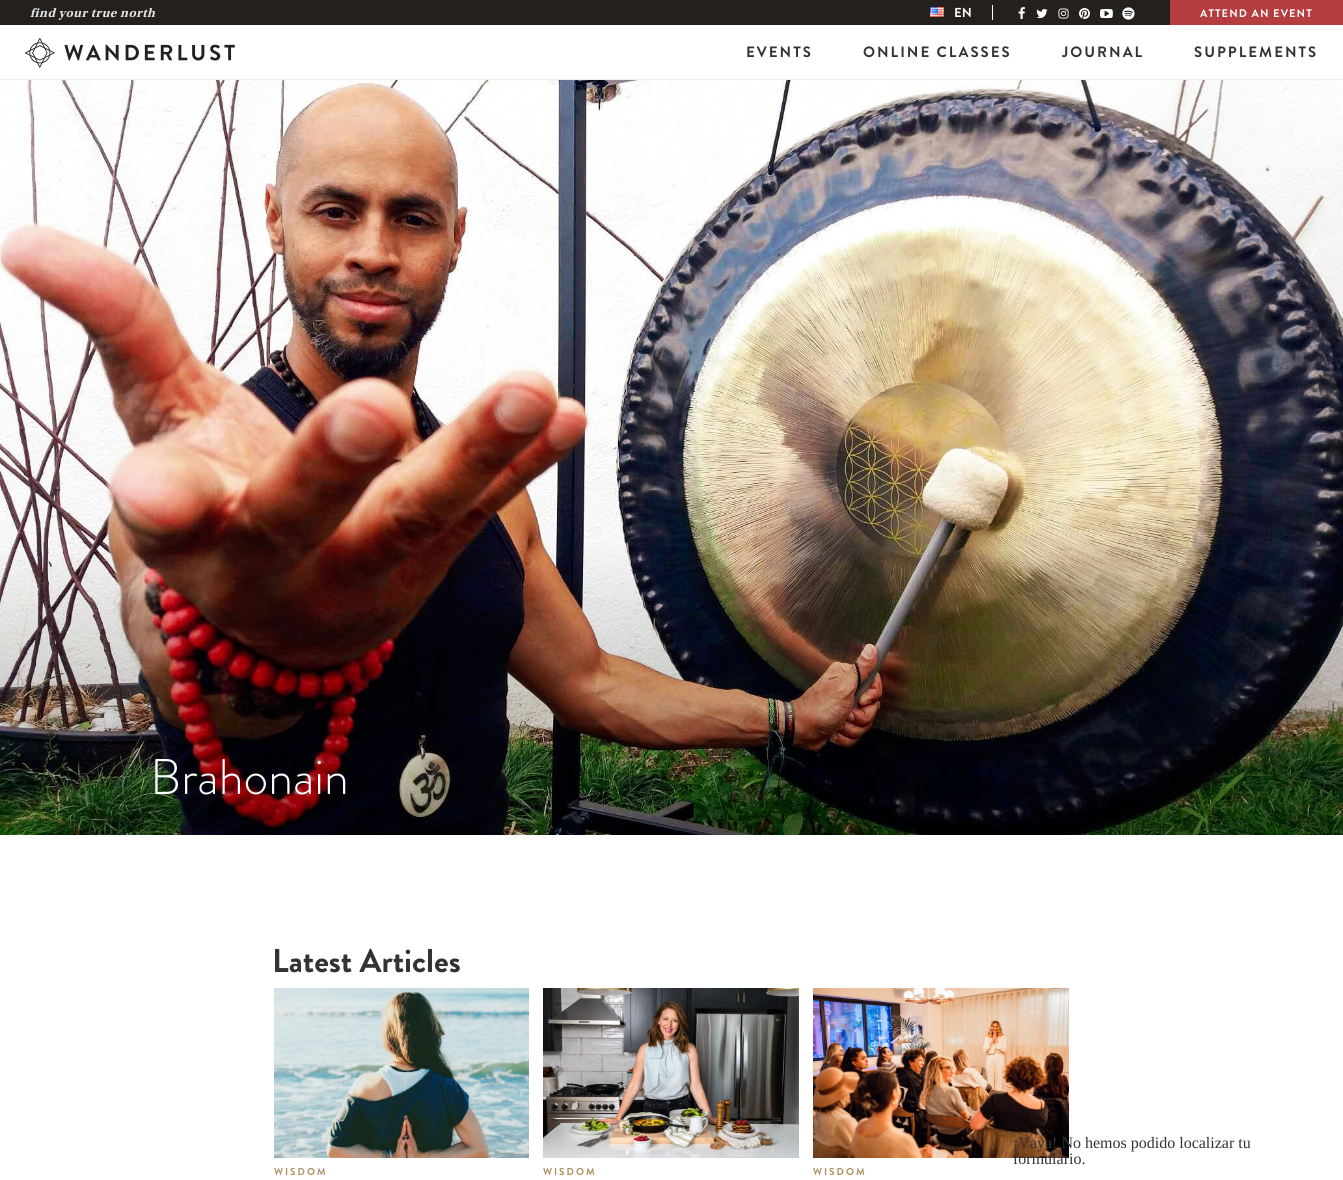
import math
import cairo


def use_color(cr, r, g, b):
  cr.set_source_rgb(r / 255, g / 255, b / 255)

def text(cr, x, y, s, family, size, color, bold=False, italic=False):
  cr.select_font_face(family, cairo.FONT_SLANT_ITALIC if italic else cairo.FONT_SLANT_NORMAL, cairo.FONT_WEIGHT_BOLD if bold else cairo.FONT_WEIGHT_NORMAL)
  cr.set_font_size(size)
  use_color(cr, *color)
  cr.move_to(x, y)
  cr.show_text(s)

def spaced_text(cr, x, y, s, letter, word):
  cr.move_to(x, y)
  for ch in s:
    cr.show_text(ch)
    cr.rel_move_to(letter + word * (ch == ' '), 0)

def box(cr, x, y, w, h, *color):
  use_color(cr, *color)
  cr.rectangle(x, y, w, h)
  cr.fill()

def picture(cr, path, x, y, w, h):
  cr.save()
  cr.set_source_surface(cairo.ImageSurface.create_from_png(path), x, y)
  cr.rectangle(x, y, w, h)
  cr.fill()
  cr.restore()

def draw(cr):
  use_color(cr, 255, 255, 255)
  cr.paint()
  box(cr, 0, 0, 1170, 25, 35, 32, 29)
  picture(cr, "img_01.png", 930, 7, 14, 10)
  box(cr, 992, 5, 1, 15, 255, 255, 255)
  picture(cr, "img_02.png", 1018, 7, 7, 12)
  picture(cr, "img_03.png", 1036, 9, 12, 10)
  picture(cr, "img_04.png", 1058, 8, 11, 11)
  picture(cr, "img_05.png", 1079, 8, 11, 11)
  picture(cr, "img_06.png", 1100, 8, 13, 11)
  picture(cr, "img_07.png", 1122, 7, 13, 13)
  box(cr, 1170, 0, 173, 25, 181, 60, 63)
  box(cr, 0, 79, 1343, 1, 236, 236, 232)
  picture(cr, "img_08.png", 25, 38, 210, 30)
  picture(cr, "img_09.png", 0, 80, 1343, 755)
  picture(cr, "img_10.png", 274, 988, 255, 170)
  picture(cr, "img_11.png", 543, 988, 256, 170)
  picture(cr, "img_12.png", 813, 988, 256, 170)
  cr.select_font_face("Utopia", cairo.FONT_SLANT_ITALIC, cairo.FONT_WEIGHT_BOLD)
  cr.set_font_size(13)
  use_color(cr, 225, 225, 225)
  spaced_text(cr, 30, 17, "find your true north", 0.5, 0)
  text(cr, 954, 17, "EN", "Brandon Grotesque", 13, (255, 255, 255), bold=True)
  cr.set_font_size(11)
  spaced_text(cr, 1200, 17, "ATTEND AN EVENT", 1.1, 0)
  cr.set_font_size(15)
  use_color(cr, 51, 51, 51)
  spaced_text(cr, 746, 57, "EVENTS", 2, 0)
  spaced_text(cr, 863, 57, "ONLINE CLASSES", 2, 0)
  spaced_text(cr, 1062, 57, "JOURNAL", 2, 0)
  spaced_text(cr, 1194, 57, "SUPPLEMENTS", 2, 0)
  text(cr, 150, 794, "Brahonain", "Brandon Grotesque Light", 50, (255, 255, 255))
  text(cr, 272, 972, "Latest Articles", "Brandon Grotesque", 33, (51, 51, 51), bold=True)
  cr.set_font_size(10)
  use_color(cr, 170, 145, 97)
  spaced_text(cr, 274, 1175, "WISDOM", 2, 0)
  spaced_text(cr, 543, 1175, "WISDOM", 2, 0)
  spaced_text(cr, 813, 1175, "WISDOM", 2, 0)
  text(cr, 1013, 1148, "¡Vaya! No hemos podido localizar tu", "Liberation Serif", 16, (51, 51, 51))
  text(cr, 1013, 1164, "formulario.", "Liberation Serif", 16, (51, 51, 51))


surface = cairo.ImageSurface(cairo.FORMAT_RGB24, 1343, 1180)
cr = cairo.Context(surface)
options = cairo.FontOptions()
options.set_hint_metrics(cairo.HINT_METRICS_OFF)
options.set_hint_style(cairo.HINT_STYLE_NONE)
cr.set_font_options(options)
cr.set_miter_limit(4)
draw(cr)
surface.write_to_png("out.png")
